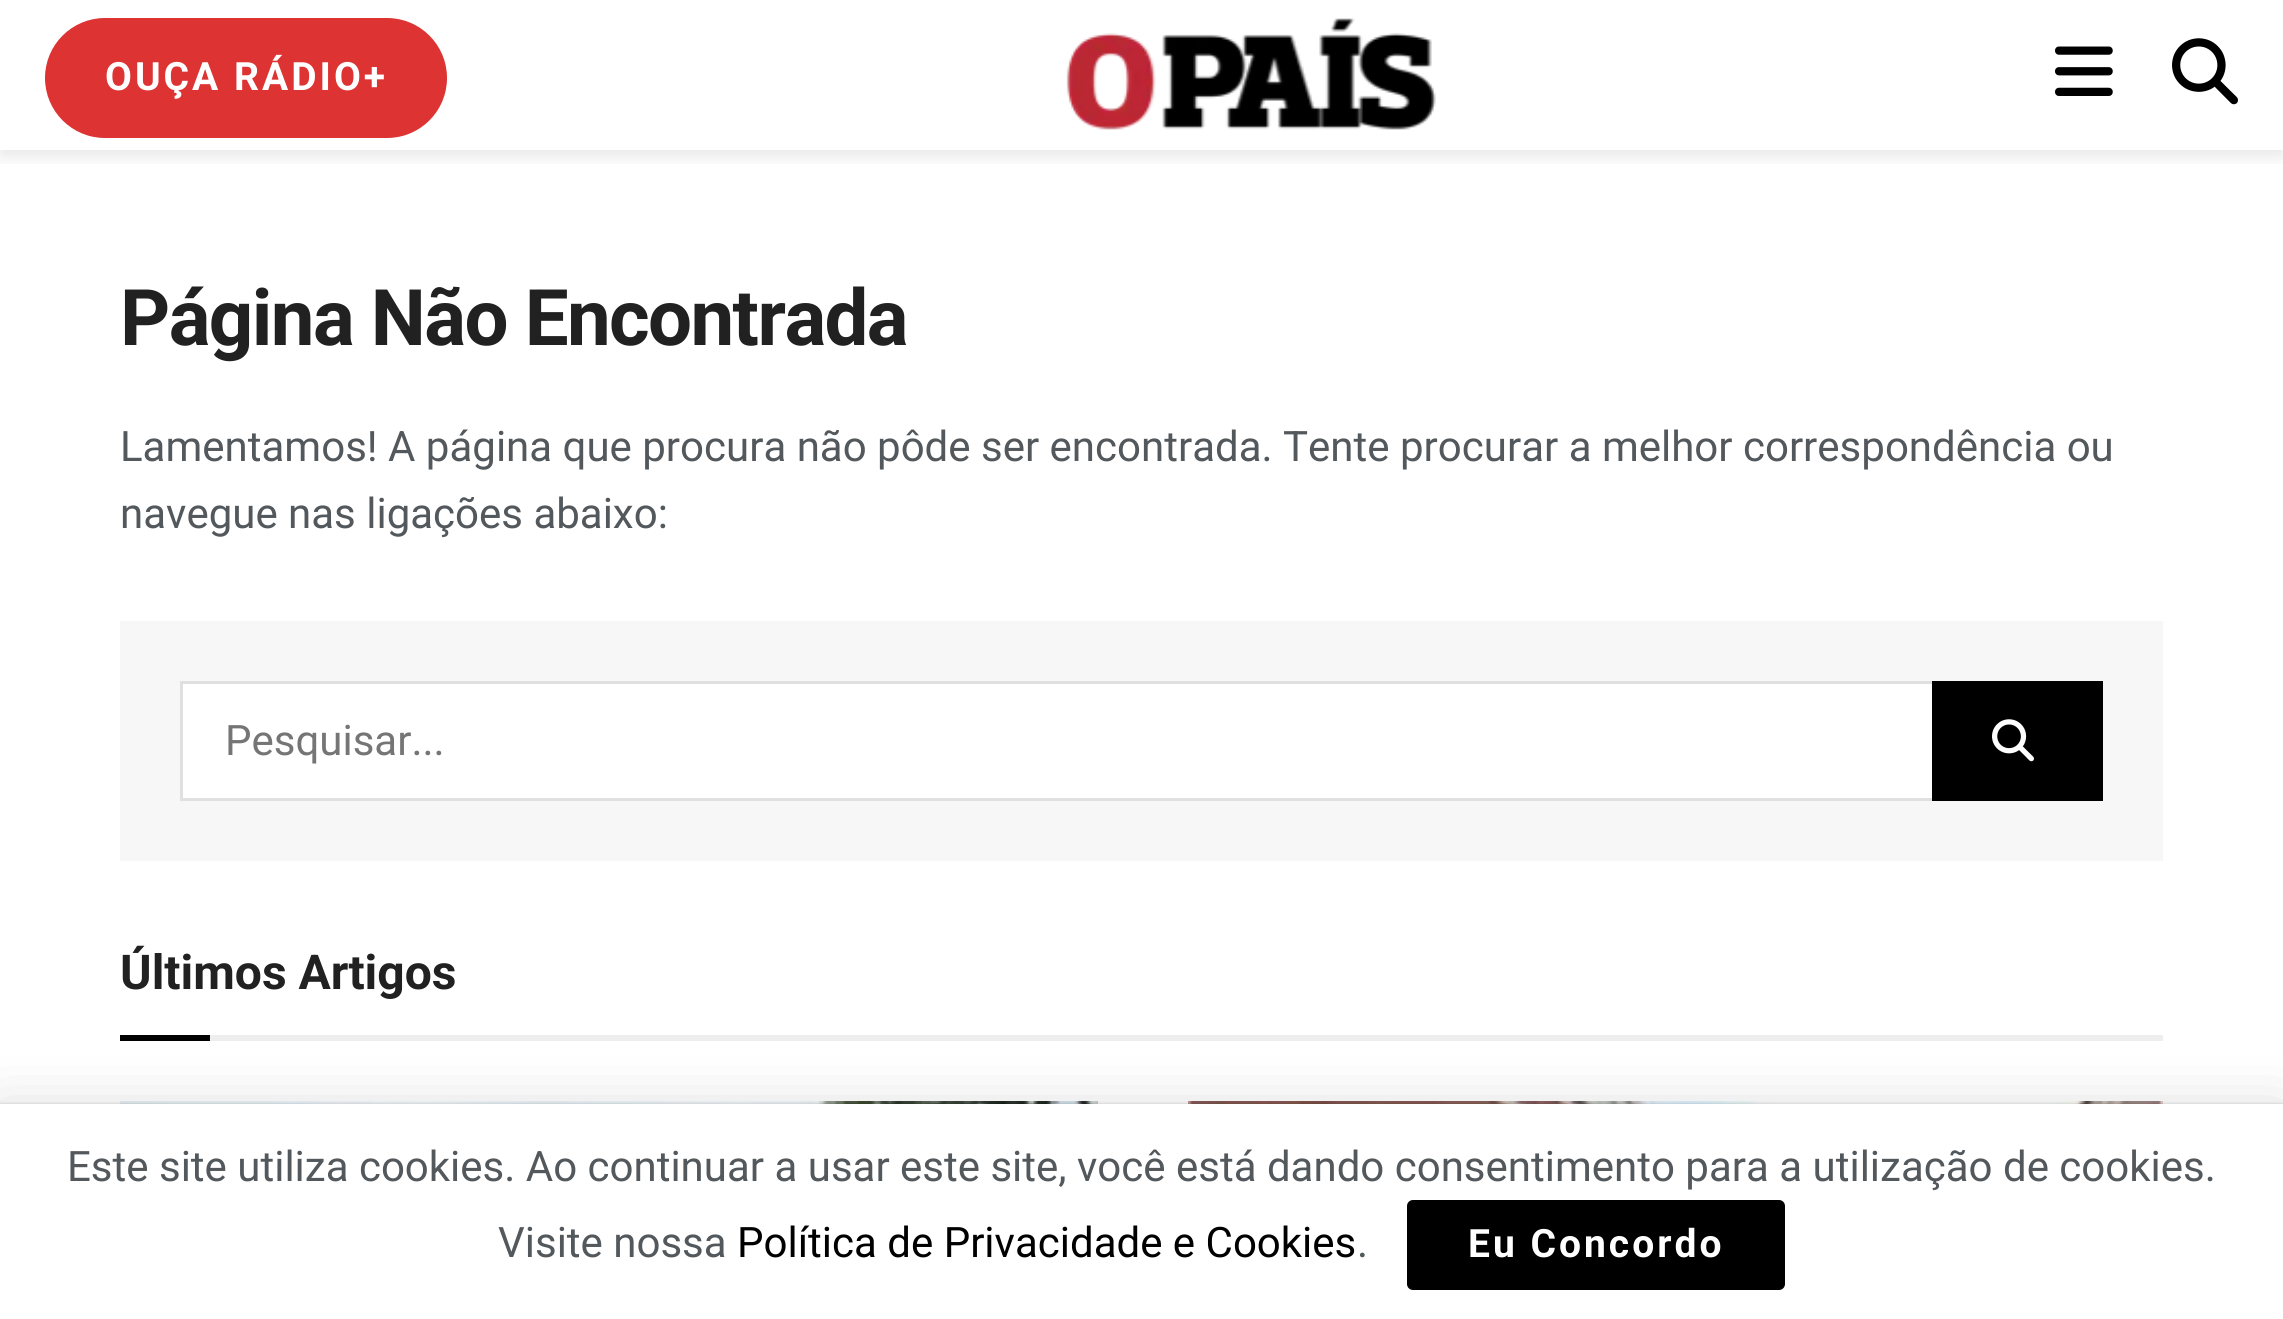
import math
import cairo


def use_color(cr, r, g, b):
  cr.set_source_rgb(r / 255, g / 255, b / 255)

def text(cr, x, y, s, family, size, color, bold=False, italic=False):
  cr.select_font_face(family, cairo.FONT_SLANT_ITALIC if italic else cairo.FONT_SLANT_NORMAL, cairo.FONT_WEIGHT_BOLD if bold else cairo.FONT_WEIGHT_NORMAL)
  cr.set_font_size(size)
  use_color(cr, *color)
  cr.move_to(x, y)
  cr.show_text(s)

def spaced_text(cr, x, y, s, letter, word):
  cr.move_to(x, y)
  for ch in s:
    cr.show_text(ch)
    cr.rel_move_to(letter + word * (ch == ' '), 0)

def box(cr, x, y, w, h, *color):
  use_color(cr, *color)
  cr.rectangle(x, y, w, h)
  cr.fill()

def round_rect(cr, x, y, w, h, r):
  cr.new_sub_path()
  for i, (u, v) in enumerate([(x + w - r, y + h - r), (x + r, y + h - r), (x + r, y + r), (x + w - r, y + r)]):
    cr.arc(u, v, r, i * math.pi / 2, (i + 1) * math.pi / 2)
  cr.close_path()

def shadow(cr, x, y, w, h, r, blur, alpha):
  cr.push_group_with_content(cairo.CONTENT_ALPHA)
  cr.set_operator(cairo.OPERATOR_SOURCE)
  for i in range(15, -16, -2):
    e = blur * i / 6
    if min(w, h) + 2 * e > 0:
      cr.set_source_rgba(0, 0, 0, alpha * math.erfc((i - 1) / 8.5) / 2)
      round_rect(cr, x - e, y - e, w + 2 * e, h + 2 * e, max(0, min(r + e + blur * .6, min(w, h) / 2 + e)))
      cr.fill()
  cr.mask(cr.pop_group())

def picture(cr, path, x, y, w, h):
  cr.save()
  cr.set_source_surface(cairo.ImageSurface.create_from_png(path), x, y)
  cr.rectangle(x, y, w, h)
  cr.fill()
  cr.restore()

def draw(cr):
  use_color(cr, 255, 255, 255)
  cr.paint()
  cr.save()
  cr.rectangle(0, 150, 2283, 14)
  cr.clip()
  use_color(cr, 0, 0, 0)
  shadow(cr, 0, 6, 2283, 150, 0, 9, 0.1)
  cr.restore()
  use_color(cr, 221, 51, 51)
  round_rect(cr, 45, 18, 402, 120, 60)
  cr.fill()
  picture(cr, "img_01.png", 1066, 18, 370, 112)
  picture(cr, "img_02.png", 2055, 46, 58, 50)
  picture(cr, "img_03.png", 2172, 38, 66, 67)
  box(cr, 120, 621, 2043, 240, 247, 247, 247)
  box(cr, 183, 684, 1749, 114, 255, 255, 255)
  cr.rectangle(181.5, 682.5, 1920, 117)
  use_color(cr, 224, 224, 224)
  cr.set_line_width(3)
  cr.stroke()
  box(cr, 1932, 681, 171, 120, 0, 0, 0)
  picture(cr, "img_04.png", 1992, 719, 42, 43)
  box(cr, 210, 1035, 1953, 6, 238, 238, 238)
  box(cr, 120, 1035, 90, 6, 0, 0, 0)
  picture(cr, "img_05.png", 120, 1101, 978, 3)
  picture(cr, "img_06.png", 1188, 1101, 975, 3)
  use_color(cr, 0, 0, 0)
  shadow(cr, 0, 1110, 2283, 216, 0, 30, 0.15)
  shadow(cr, 0, 1104, 2283, 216, 0, 1.5, 0.2)
  box(cr, 0, 1104, 2283, 215, 255, 255, 255)
  use_color(cr, 0, 0, 0)
  round_rect(cr, 1407, 1200, 378, 90, 6)
  cr.fill()
  cr.select_font_face("Roboto", cairo.FONT_SLANT_NORMAL, cairo.FONT_WEIGHT_BOLD)
  cr.set_font_size(39)
  use_color(cr, 255, 255, 255)
  spaced_text(cr, 105, 90, "OUÇA RÁDIO+", 3, 0)
  cr.set_font_size(78)
  use_color(cr, 33, 33, 33)
  spaced_text(cr, 120, 345, "Página Não Encontrada", -1.6, 0)
  text(cr, 120, 461, "Lamentamos! A página que procura não pôde ser encontrada. Tente procurar a melhor correspondência ou", "Roboto", 42, (83, 88, 92))
  text(cr, 120, 528, "navegue nas ligações abaixo:", "Roboto", 42, (83, 88, 92))
  text(cr, 225, 755, "Pesquisar...", "Roboto", 42, (117, 117, 117))
  text(cr, 120, 989, "Últimos Artigos", "Roboto", 48, (33, 33, 33), bold=True)
  text(cr, 67, 1181, "Este site utiliza cookies. Ao continuar a usar este site, você está dando consentimento para a utilização de cookies.", "Roboto", 42, (83, 88, 92))
  text(cr, 498, 1257, "Visite nossa", "Roboto", 42, (83, 88, 92))
  text(cr, 737, 1257, "Política de Privacidade e Cookies", "Roboto", 42, (0, 0, 0))
  text(cr, 1357, 1257, ".", "Roboto", 42, (83, 88, 92))
  cr.select_font_face("Roboto", cairo.FONT_SLANT_NORMAL, cairo.FONT_WEIGHT_BOLD)
  cr.set_font_size(39)
  use_color(cr, 255, 255, 255)
  spaced_text(cr, 1468, 1257, "Eu Concordo", 3, 0)


surface = cairo.ImageSurface(cairo.FORMAT_RGB24, 2283, 1319)
cr = cairo.Context(surface)
options = cairo.FontOptions()
options.set_hint_metrics(cairo.HINT_METRICS_OFF)
options.set_hint_style(cairo.HINT_STYLE_NONE)
cr.set_font_options(options)
cr.set_miter_limit(4)
draw(cr)
surface.write_to_png("out.png")
